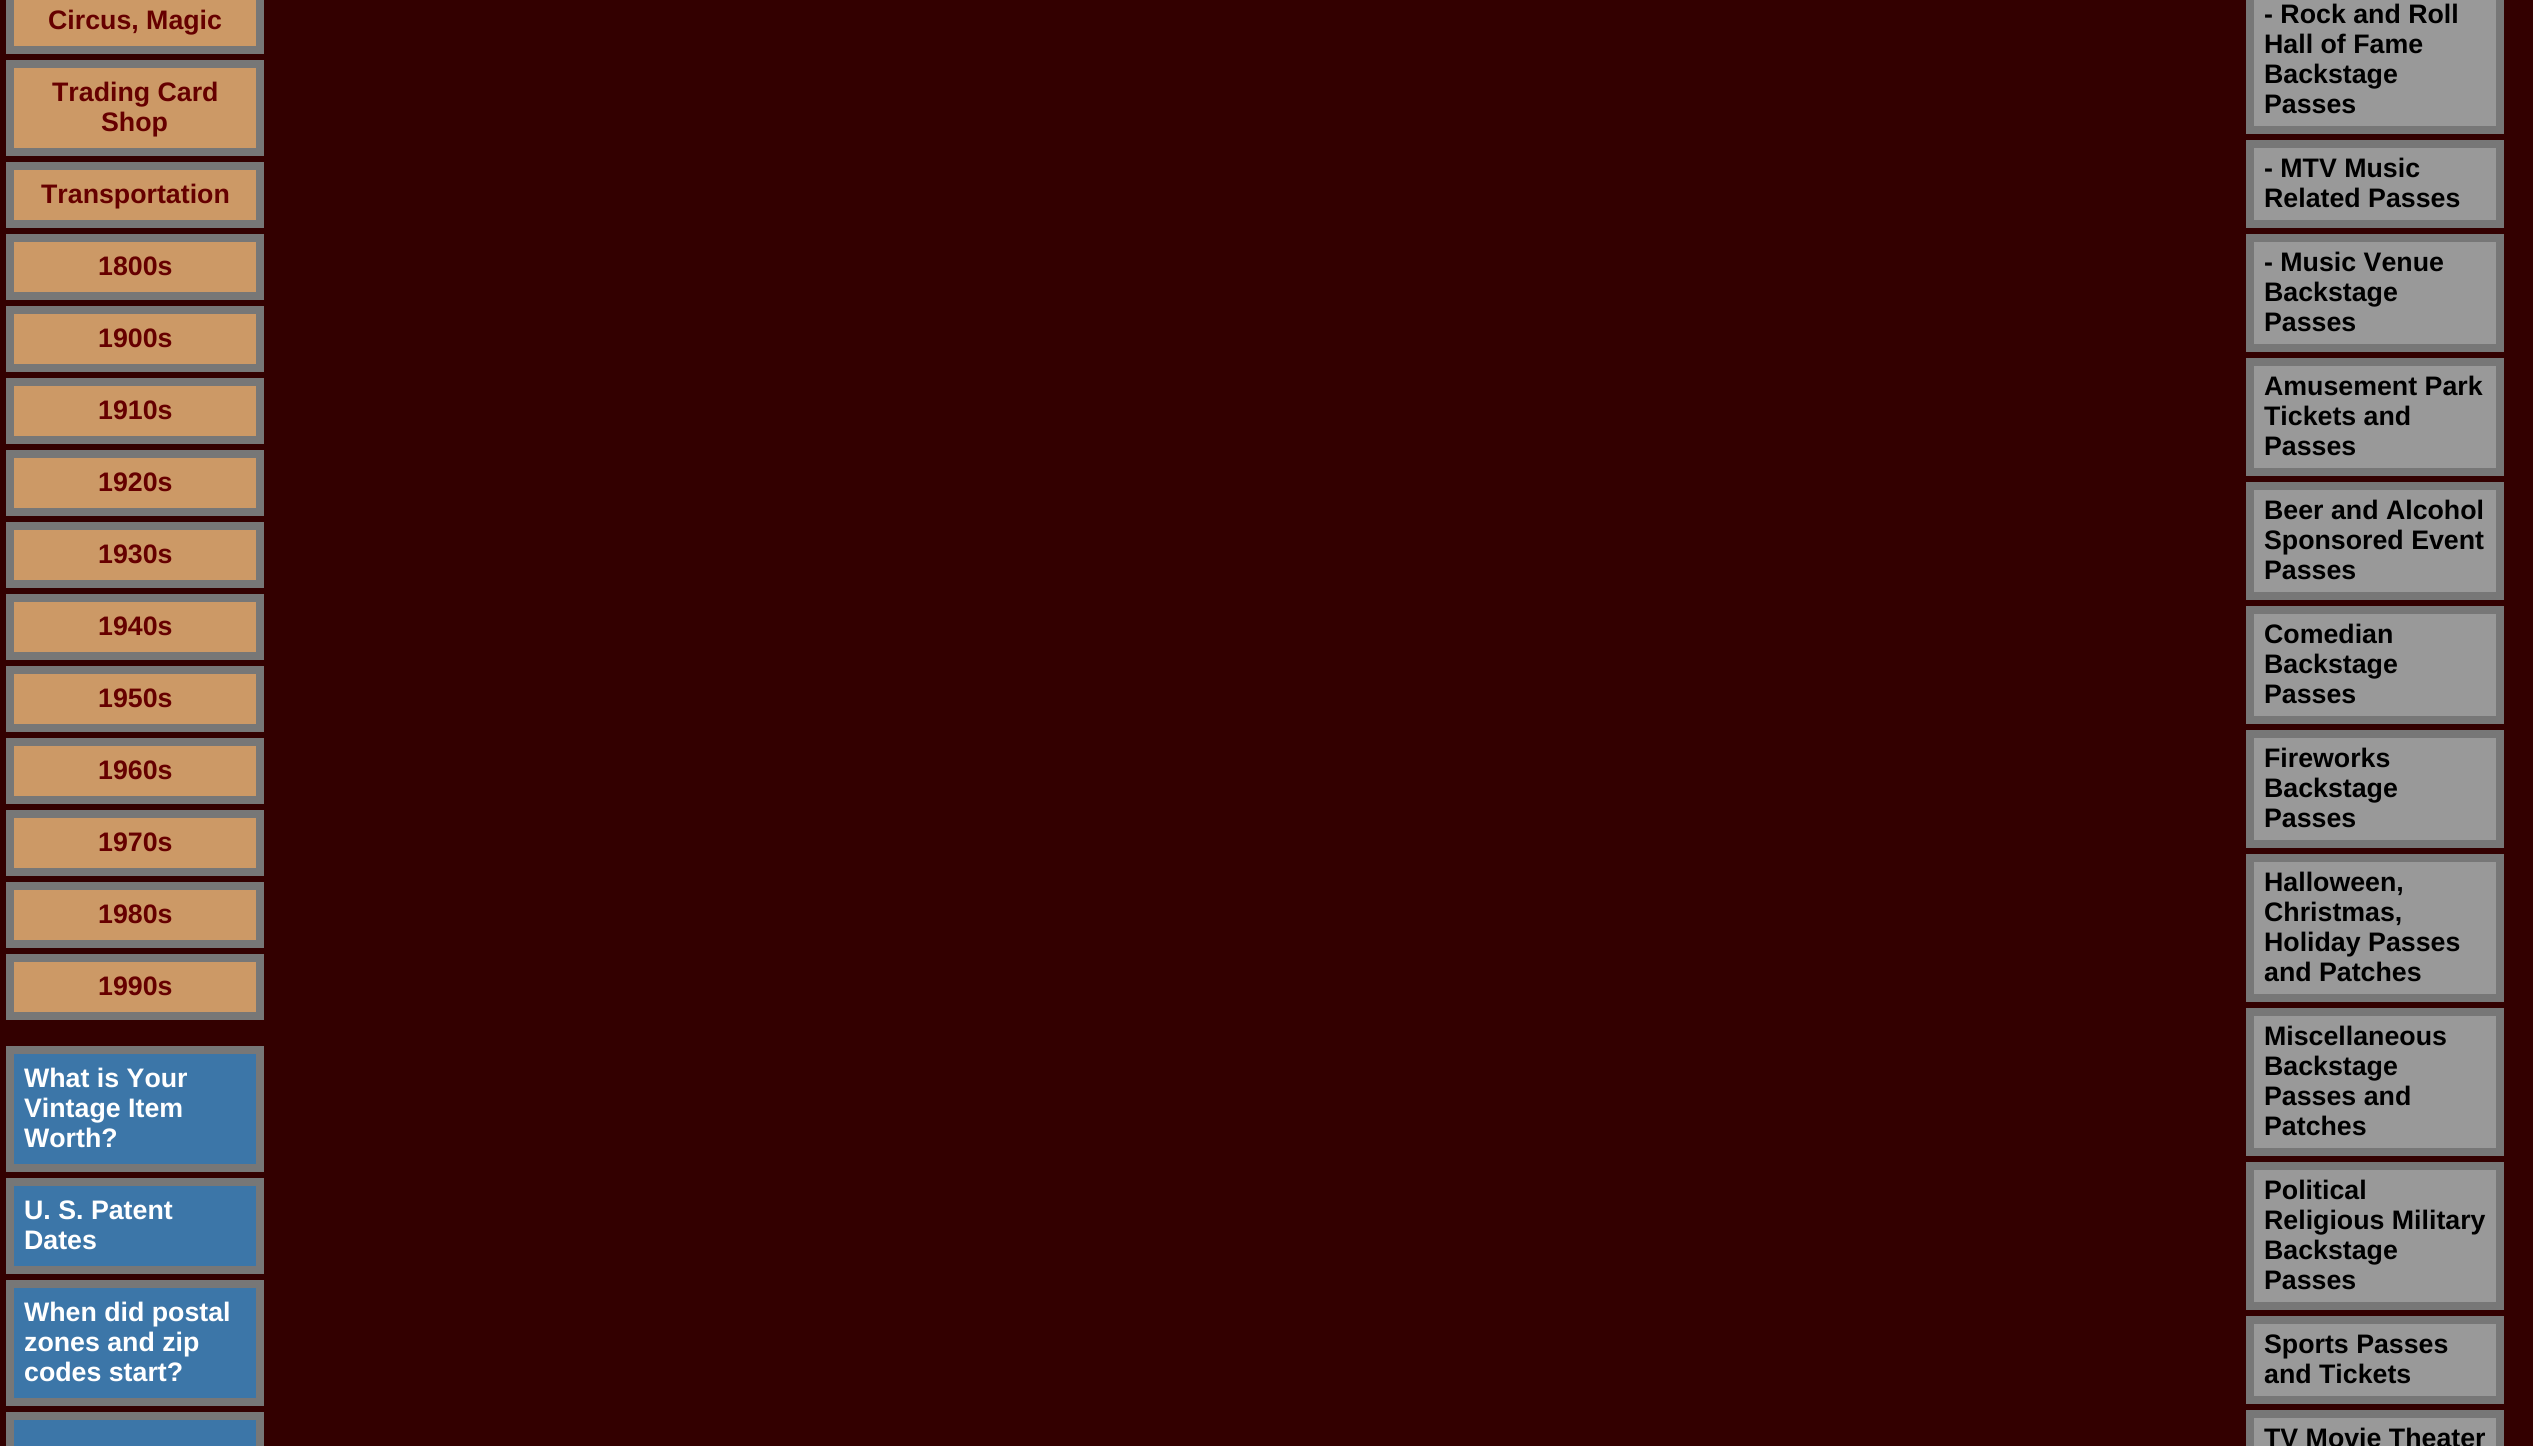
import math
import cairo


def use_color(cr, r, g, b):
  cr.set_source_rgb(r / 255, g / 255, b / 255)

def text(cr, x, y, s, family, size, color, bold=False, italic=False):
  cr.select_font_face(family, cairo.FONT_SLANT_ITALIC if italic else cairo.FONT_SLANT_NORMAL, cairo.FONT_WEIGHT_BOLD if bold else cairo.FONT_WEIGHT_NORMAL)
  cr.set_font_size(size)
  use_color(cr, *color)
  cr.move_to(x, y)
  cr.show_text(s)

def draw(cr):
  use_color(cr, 51, 0, 0)
  cr.paint()
  use_color(cr, 204, 153, 102)
  cr.rectangle(10, -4, 250, 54)
  cr.fill_preserve()
  use_color(cr, 119, 119, 119)
  cr.set_line_width(8)
  cr.stroke()
  use_color(cr, 204, 153, 102)
  cr.rectangle(10, 64, 250, 88)
  cr.fill_preserve()
  use_color(cr, 119, 119, 119)
  cr.stroke()
  use_color(cr, 204, 153, 102)
  cr.rectangle(10, 166, 250, 58)
  cr.fill_preserve()
  use_color(cr, 119, 119, 119)
  cr.stroke()
  use_color(cr, 204, 153, 102)
  cr.rectangle(10, 238, 250, 58)
  cr.fill_preserve()
  use_color(cr, 119, 119, 119)
  cr.stroke()
  use_color(cr, 204, 153, 102)
  cr.rectangle(10, 310, 250, 58)
  cr.fill_preserve()
  use_color(cr, 119, 119, 119)
  cr.stroke()
  use_color(cr, 204, 153, 102)
  cr.rectangle(10, 382, 250, 58)
  cr.fill_preserve()
  use_color(cr, 119, 119, 119)
  cr.stroke()
  use_color(cr, 204, 153, 102)
  cr.rectangle(10, 454, 250, 58)
  cr.fill_preserve()
  use_color(cr, 119, 119, 119)
  cr.stroke()
  use_color(cr, 204, 153, 102)
  cr.rectangle(10, 526, 250, 58)
  cr.fill_preserve()
  use_color(cr, 119, 119, 119)
  cr.stroke()
  use_color(cr, 204, 153, 102)
  cr.rectangle(10, 598, 250, 58)
  cr.fill_preserve()
  use_color(cr, 119, 119, 119)
  cr.stroke()
  use_color(cr, 204, 153, 102)
  cr.rectangle(10, 670, 250, 58)
  cr.fill_preserve()
  use_color(cr, 119, 119, 119)
  cr.stroke()
  use_color(cr, 204, 153, 102)
  cr.rectangle(10, 742, 250, 58)
  cr.fill_preserve()
  use_color(cr, 119, 119, 119)
  cr.stroke()
  use_color(cr, 204, 153, 102)
  cr.rectangle(10, 814, 250, 58)
  cr.fill_preserve()
  use_color(cr, 119, 119, 119)
  cr.stroke()
  use_color(cr, 204, 153, 102)
  cr.rectangle(10, 886, 250, 58)
  cr.fill_preserve()
  use_color(cr, 119, 119, 119)
  cr.stroke()
  use_color(cr, 204, 153, 102)
  cr.rectangle(10, 958, 250, 58)
  cr.fill_preserve()
  use_color(cr, 119, 119, 119)
  cr.stroke()
  use_color(cr, 60, 118, 168)
  cr.rectangle(10, 1050, 250, 118)
  cr.fill_preserve()
  use_color(cr, 119, 119, 119)
  cr.stroke()
  use_color(cr, 60, 118, 168)
  cr.rectangle(10, 1182, 250, 88)
  cr.fill_preserve()
  use_color(cr, 119, 119, 119)
  cr.stroke()
  use_color(cr, 60, 118, 168)
  cr.rectangle(10, 1284, 250, 118)
  cr.fill_preserve()
  use_color(cr, 119, 119, 119)
  cr.stroke()
  use_color(cr, 60, 118, 168)
  cr.rectangle(10, 1416, 250, 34)
  cr.fill_preserve()
  use_color(cr, 119, 119, 119)
  cr.stroke()
  use_color(cr, 153, 153, 153)
  cr.rectangle(2250, -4, 250, 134)
  cr.fill_preserve()
  use_color(cr, 119, 119, 119)
  cr.stroke()
  use_color(cr, 153, 153, 153)
  cr.rectangle(2250, 144, 250, 80)
  cr.fill_preserve()
  use_color(cr, 119, 119, 119)
  cr.stroke()
  use_color(cr, 153, 153, 153)
  cr.rectangle(2250, 238, 250, 110)
  cr.fill_preserve()
  use_color(cr, 119, 119, 119)
  cr.stroke()
  use_color(cr, 153, 153, 153)
  cr.rectangle(2250, 362, 250, 110)
  cr.fill_preserve()
  use_color(cr, 119, 119, 119)
  cr.stroke()
  use_color(cr, 153, 153, 153)
  cr.rectangle(2250, 486, 250, 110)
  cr.fill_preserve()
  use_color(cr, 119, 119, 119)
  cr.stroke()
  use_color(cr, 153, 153, 153)
  cr.rectangle(2250, 610, 250, 110)
  cr.fill_preserve()
  use_color(cr, 119, 119, 119)
  cr.stroke()
  use_color(cr, 153, 153, 153)
  cr.rectangle(2250, 734, 250, 110)
  cr.fill_preserve()
  use_color(cr, 119, 119, 119)
  cr.stroke()
  use_color(cr, 153, 153, 153)
  cr.rectangle(2250, 858, 250, 140)
  cr.fill_preserve()
  use_color(cr, 119, 119, 119)
  cr.stroke()
  use_color(cr, 153, 153, 153)
  cr.rectangle(2250, 1012, 250, 140)
  cr.fill_preserve()
  use_color(cr, 119, 119, 119)
  cr.stroke()
  use_color(cr, 153, 153, 153)
  cr.rectangle(2250, 1166, 250, 140)
  cr.fill_preserve()
  use_color(cr, 119, 119, 119)
  cr.stroke()
  use_color(cr, 153, 153, 153)
  cr.rectangle(2250, 1320, 250, 80)
  cr.fill_preserve()
  use_color(cr, 119, 119, 119)
  cr.stroke()
  use_color(cr, 153, 153, 153)
  cr.rectangle(2250, 1414, 250, 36)
  cr.fill_preserve()
  use_color(cr, 119, 119, 119)
  cr.stroke()
  text(cr, 48, 29, "Circus, Magic", "Liberation Sans", 26.75, (102, 0, 0), bold=True)
  text(cr, 52, 101, "Trading Card", "Liberation Sans", 26.75, (102, 0, 0), bold=True)
  text(cr, 101, 131, "Shop", "Liberation Sans", 26.75, (102, 0, 0), bold=True)
  text(cr, 41, 203, "Transportation", "Liberation Sans", 26.75, (102, 0, 0), bold=True)
  text(cr, 98, 275, "1800s", "Liberation Sans", 26.75, (102, 0, 0), bold=True)
  text(cr, 98, 347, "1900s", "Liberation Sans", 26.75, (102, 0, 0), bold=True)
  text(cr, 98, 419, "1910s", "Liberation Sans", 26.75, (102, 0, 0), bold=True)
  text(cr, 98, 491, "1920s", "Liberation Sans", 26.75, (102, 0, 0), bold=True)
  text(cr, 98, 563, "1930s", "Liberation Sans", 26.75, (102, 0, 0), bold=True)
  text(cr, 98, 635, "1940s", "Liberation Sans", 26.75, (102, 0, 0), bold=True)
  text(cr, 98, 707, "1950s", "Liberation Sans", 26.75, (102, 0, 0), bold=True)
  text(cr, 98, 779, "1960s", "Liberation Sans", 26.75, (102, 0, 0), bold=True)
  text(cr, 98, 851, "1970s", "Liberation Sans", 26.75, (102, 0, 0), bold=True)
  text(cr, 98, 923, "1980s", "Liberation Sans", 26.75, (102, 0, 0), bold=True)
  text(cr, 98, 995, "1990s", "Liberation Sans", 26.75, (102, 0, 0), bold=True)
  text(cr, 24, 1087, "What is Your", "Liberation Sans", 26.75, (255, 255, 255), bold=True)
  text(cr, 24, 1117, "Vintage Item", "Liberation Sans", 26.75, (255, 255, 255), bold=True)
  text(cr, 24, 1147, "Worth?", "Liberation Sans", 26.75, (255, 255, 255), bold=True)
  text(cr, 24, 1219, "U. S. Patent", "Liberation Sans", 26.75, (255, 255, 255), bold=True)
  text(cr, 24, 1249, "Dates", "Liberation Sans", 26.75, (255, 255, 255), bold=True)
  text(cr, 24, 1321, "When did postal", "Liberation Sans", 26.75, (255, 255, 255), bold=True)
  text(cr, 24, 1351, "zones and zip", "Liberation Sans", 26.75, (255, 255, 255), bold=True)
  text(cr, 24, 1381, "codes start?", "Liberation Sans", 26.75, (255, 255, 255), bold=True)
  text(cr, 2264, 23, "- Rock and Roll", "Liberation Sans", 26.75, (0, 0, 0), bold=True)
  text(cr, 2264, 53, "Hall of Fame", "Liberation Sans", 26.75, (0, 0, 0), bold=True)
  text(cr, 2264, 83, "Backstage", "Liberation Sans", 26.75, (0, 0, 0), bold=True)
  text(cr, 2264, 113, "Passes", "Liberation Sans", 26.75, (0, 0, 0), bold=True)
  text(cr, 2264, 177, "- MTV Music", "Liberation Sans", 26.75, (0, 0, 0), bold=True)
  text(cr, 2264, 207, "Related Passes", "Liberation Sans", 26.75, (0, 0, 0), bold=True)
  text(cr, 2264, 271, "- Music Venue", "Liberation Sans", 26.75, (0, 0, 0), bold=True)
  text(cr, 2264, 301, "Backstage", "Liberation Sans", 26.75, (0, 0, 0), bold=True)
  text(cr, 2264, 331, "Passes", "Liberation Sans", 26.75, (0, 0, 0), bold=True)
  text(cr, 2264, 395, "Amusement Park", "Liberation Sans", 26.75, (0, 0, 0), bold=True)
  text(cr, 2264, 425, "Tickets and", "Liberation Sans", 26.75, (0, 0, 0), bold=True)
  text(cr, 2264, 455, "Passes", "Liberation Sans", 26.75, (0, 0, 0), bold=True)
  text(cr, 2264, 519, "Beer and Alcohol", "Liberation Sans", 26.75, (0, 0, 0), bold=True)
  text(cr, 2264, 549, "Sponsored Event", "Liberation Sans", 26.75, (0, 0, 0), bold=True)
  text(cr, 2264, 579, "Passes", "Liberation Sans", 26.75, (0, 0, 0), bold=True)
  text(cr, 2264, 643, "Comedian", "Liberation Sans", 26.75, (0, 0, 0), bold=True)
  text(cr, 2264, 673, "Backstage", "Liberation Sans", 26.75, (0, 0, 0), bold=True)
  text(cr, 2264, 703, "Passes", "Liberation Sans", 26.75, (0, 0, 0), bold=True)
  text(cr, 2264, 767, "Fireworks", "Liberation Sans", 26.75, (0, 0, 0), bold=True)
  text(cr, 2264, 797, "Backstage", "Liberation Sans", 26.75, (0, 0, 0), bold=True)
  text(cr, 2264, 827, "Passes", "Liberation Sans", 26.75, (0, 0, 0), bold=True)
  text(cr, 2264, 891, "Halloween,", "Liberation Sans", 26.75, (0, 0, 0), bold=True)
  text(cr, 2264, 921, "Christmas,", "Liberation Sans", 26.75, (0, 0, 0), bold=True)
  text(cr, 2264, 951, "Holiday Passes", "Liberation Sans", 26.75, (0, 0, 0), bold=True)
  text(cr, 2264, 981, "and Patches", "Liberation Sans", 26.75, (0, 0, 0), bold=True)
  text(cr, 2264, 1045, "Miscellaneous", "Liberation Sans", 26.75, (0, 0, 0), bold=True)
  text(cr, 2264, 1075, "Backstage", "Liberation Sans", 26.75, (0, 0, 0), bold=True)
  text(cr, 2264, 1105, "Passes and", "Liberation Sans", 26.75, (0, 0, 0), bold=True)
  text(cr, 2264, 1135, "Patches", "Liberation Sans", 26.75, (0, 0, 0), bold=True)
  text(cr, 2264, 1199, "Political", "Liberation Sans", 26.75, (0, 0, 0), bold=True)
  text(cr, 2264, 1229, "Religious Military", "Liberation Sans", 26.75, (0, 0, 0), bold=True)
  text(cr, 2264, 1259, "Backstage", "Liberation Sans", 26.75, (0, 0, 0), bold=True)
  text(cr, 2264, 1289, "Passes", "Liberation Sans", 26.75, (0, 0, 0), bold=True)
  text(cr, 2264, 1353, "Sports Passes", "Liberation Sans", 26.75, (0, 0, 0), bold=True)
  text(cr, 2264, 1383, "and Tickets", "Liberation Sans", 26.75, (0, 0, 0), bold=True)
  text(cr, 2264, 1447, "TV Movie Theater", "Liberation Sans", 26.75, (0, 0, 0), bold=True)


surface = cairo.ImageSurface(cairo.FORMAT_RGB24, 2533, 1446)
cr = cairo.Context(surface)
options = cairo.FontOptions()
options.set_hint_metrics(cairo.HINT_METRICS_OFF)
options.set_hint_style(cairo.HINT_STYLE_NONE)
cr.set_font_options(options)
cr.set_miter_limit(4)
draw(cr)
surface.write_to_png("out.png")
